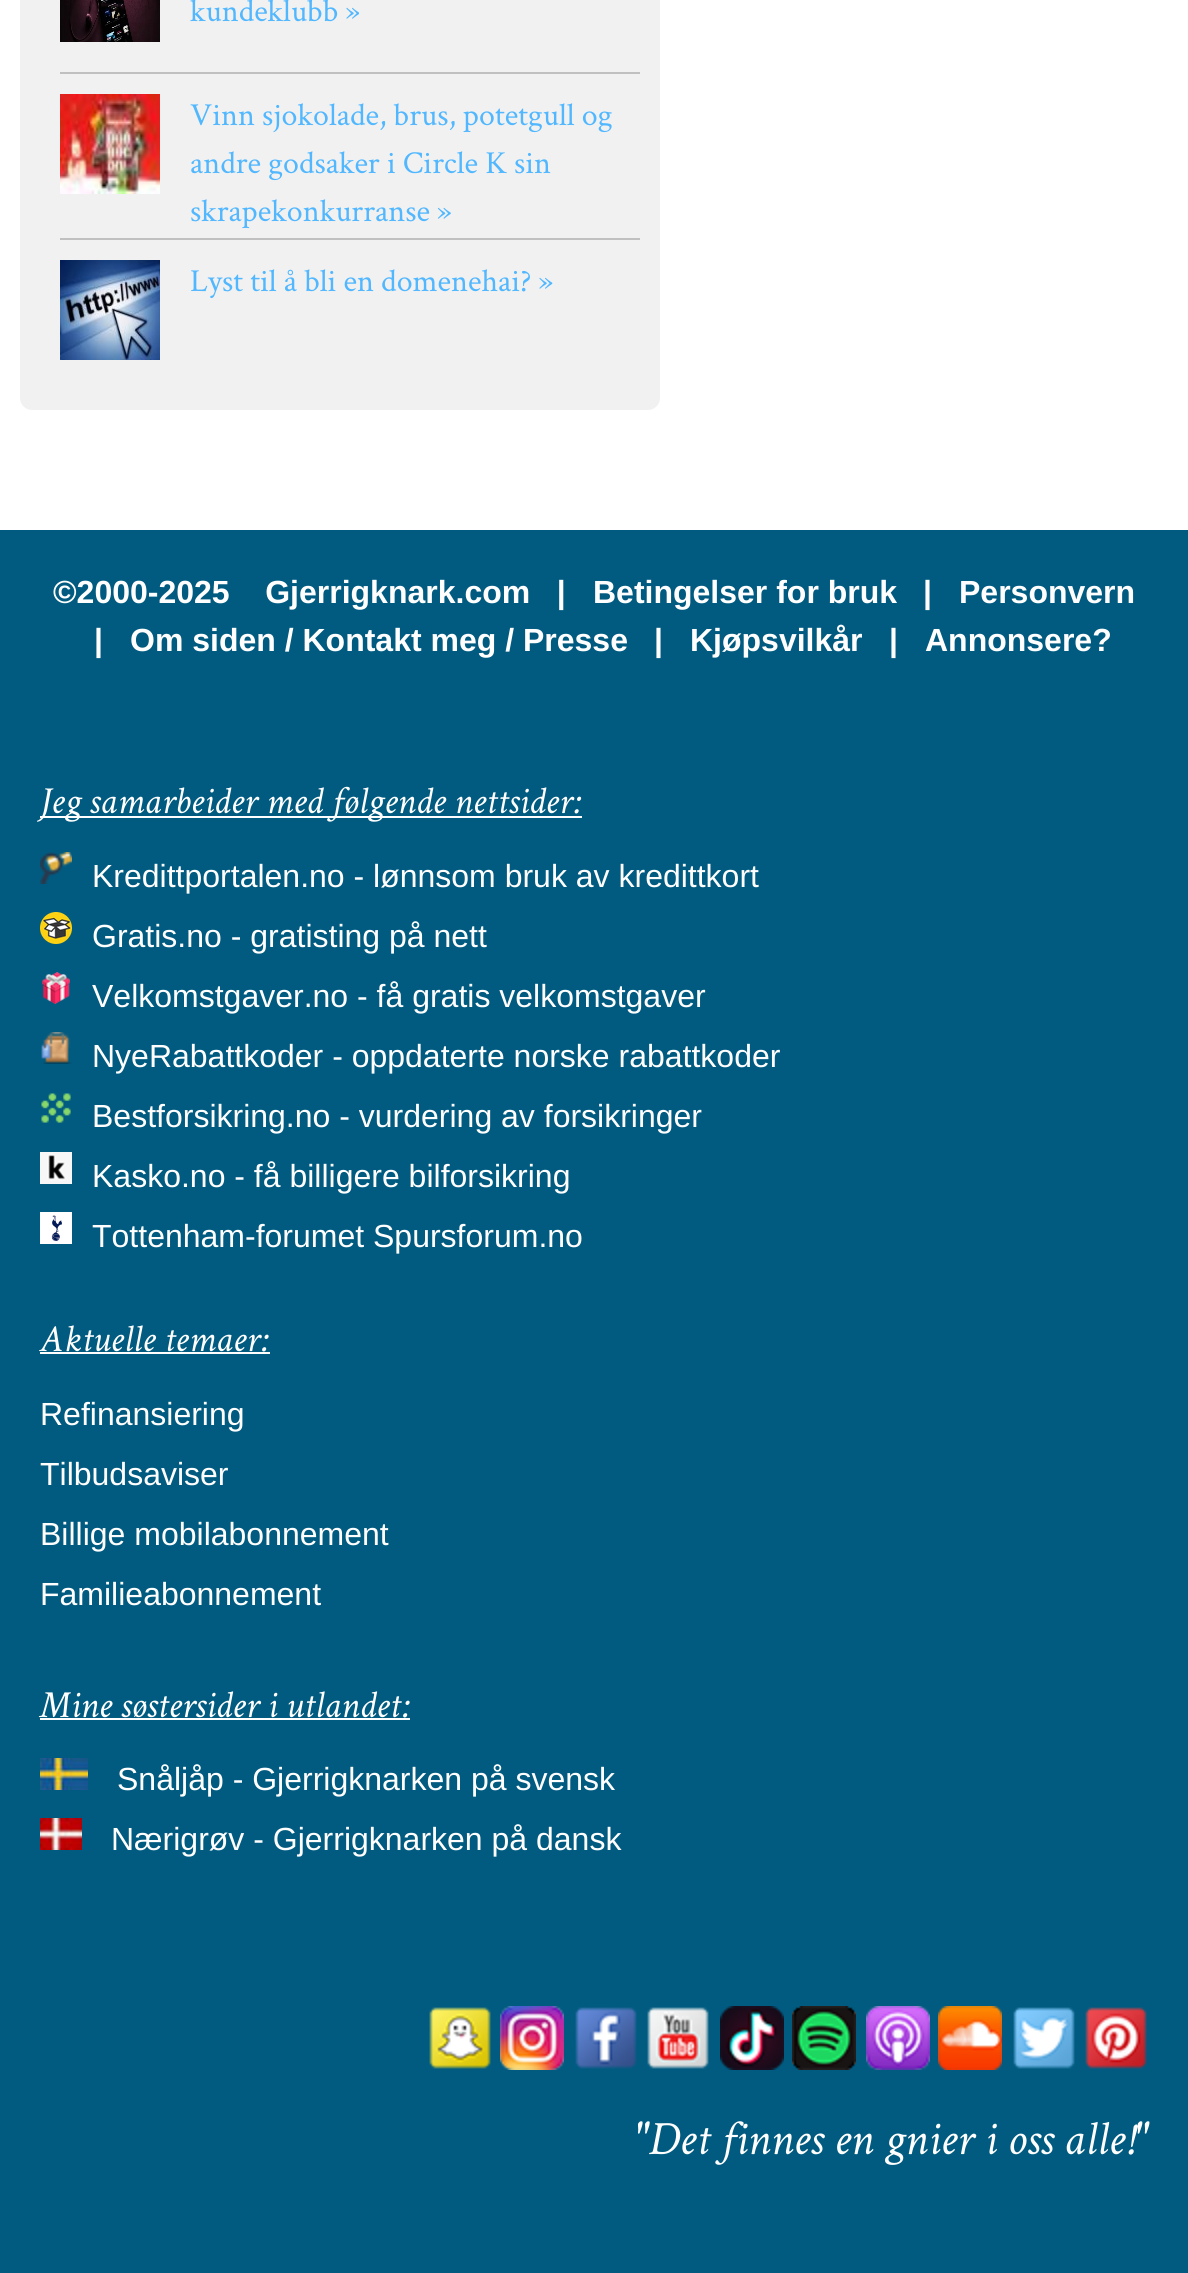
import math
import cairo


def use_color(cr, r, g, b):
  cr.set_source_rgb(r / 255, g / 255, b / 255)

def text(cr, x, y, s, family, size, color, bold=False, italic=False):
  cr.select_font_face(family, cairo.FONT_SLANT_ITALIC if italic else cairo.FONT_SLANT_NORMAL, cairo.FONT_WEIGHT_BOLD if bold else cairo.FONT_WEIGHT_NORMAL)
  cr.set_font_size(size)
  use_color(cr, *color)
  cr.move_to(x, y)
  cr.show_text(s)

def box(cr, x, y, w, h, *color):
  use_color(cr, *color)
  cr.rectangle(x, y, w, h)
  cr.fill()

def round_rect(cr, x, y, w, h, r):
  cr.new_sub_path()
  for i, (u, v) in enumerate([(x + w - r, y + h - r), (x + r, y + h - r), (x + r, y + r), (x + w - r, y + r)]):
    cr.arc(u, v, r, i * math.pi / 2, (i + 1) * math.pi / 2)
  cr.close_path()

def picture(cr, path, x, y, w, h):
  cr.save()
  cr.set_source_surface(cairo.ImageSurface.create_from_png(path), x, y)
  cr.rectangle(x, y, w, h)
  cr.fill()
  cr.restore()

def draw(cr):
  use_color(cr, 255, 255, 255)
  cr.paint()
  use_color(cr, 241, 241, 241)
  round_rect(cr, 20, -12, 640, 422, 12)
  cr.fill()
  box(cr, 60, 72, 580, 2, 192, 192, 192)
  picture(cr, "img_01.png", 60, 0, 100, 42)
  box(cr, 60, 238, 580, 2, 192, 192, 192)
  picture(cr, "img_02.png", 60, 94, 100, 100)
  picture(cr, "img_03.png", 60, 260, 100, 100)
  box(cr, 0, 530, 1188, 1743, 1, 91, 128)
  box(cr, 40, 816, 542, 2, 255, 255, 255)
  picture(cr, "img_04.png", 40, 852, 32, 32)
  picture(cr, "img_05.png", 40, 912, 32, 32)
  picture(cr, "img_06.png", 42, 972, 28, 32)
  picture(cr, "img_07.png", 41, 1032, 31, 32)
  picture(cr, "img_08.png", 41, 1093, 30, 30)
  picture(cr, "img_09.png", 40, 1152, 32, 32)
  picture(cr, "img_10.png", 40, 1212, 32, 32)
  box(cr, 40, 1352, 230, 2, 255, 255, 255)
  box(cr, 40, 1718, 370, 2, 255, 255, 255)
  picture(cr, "img_11.png", 40, 1758, 48, 32)
  picture(cr, "img_12.png", 40, 1818, 42, 32)
  picture(cr, "img_13.png", 429, 2007, 62, 62)
  picture(cr, "img_14.png", 500, 2006, 64, 64)
  picture(cr, "img_15.png", 575, 2007, 62, 62)
  picture(cr, "img_16.png", 647, 2007, 62, 62)
  picture(cr, "img_17.png", 720, 2006, 64, 64)
  picture(cr, "img_18.png", 792, 2006, 64, 64)
  picture(cr, "img_19.png", 866, 2006, 64, 64)
  picture(cr, "img_20.png", 938, 2006, 64, 64)
  picture(cr, "img_21.png", 1013, 2007, 62, 62)
  picture(cr, "img_22.png", 1085, 2007, 62, 62)
  text(cr, 190, 21, "kundeklubb »", "Crimson Text", 32, (81, 183, 255))
  text(cr, 190, 125, "Vinn sjokolade, brus, potetgull og", "Crimson Text", 32, (81, 183, 255))
  text(cr, 190, 173, "andre godsaker i Circle K sin", "Crimson Text", 32, (81, 183, 255))
  text(cr, 190, 221, "skrapekonkurranse »", "Crimson Text", 32, (81, 183, 255))
  text(cr, 190, 291, "Lyst til å bli en domenehai? »", "Crimson Text", 32, (81, 183, 255))
  text(cr, 53, 603, "©2000-2025    Gjerrigknark.com   |", "Liberation Sans", 32, (255, 255, 255), bold=True)
  text(cr, 593, 603, "Betingelser for bruk", "Liberation Sans", 32, (255, 255, 255), bold=True)
  text(cr, 923, 603, "|", "Liberation Sans", 32, (255, 255, 255), bold=True)
  text(cr, 959, 603, "Personvern", "Liberation Sans", 32, (255, 255, 255), bold=True)
  text(cr, 94, 651, "|", "Liberation Sans", 32, (255, 255, 255), bold=True)
  text(cr, 130, 651, "Om siden / Kontakt meg / Presse", "Liberation Sans", 32, (255, 255, 255), bold=True)
  text(cr, 654, 651, "|", "Liberation Sans", 32, (255, 255, 255), bold=True)
  text(cr, 690, 651, "Kjøpsvilkår", "Liberation Sans", 32, (255, 255, 255), bold=True)
  text(cr, 889, 651, "|", "Liberation Sans", 32, (255, 255, 255), bold=True)
  text(cr, 925, 651, "Annonsere?", "Liberation Sans", 32, (255, 255, 255), bold=True)
  text(cr, 40, 813, "Jeg samarbeider med følgende nettsider:", "Crimson Text", 38.4, (255, 255, 255), italic=True)
  text(cr, 92, 887, "Kredittportalen.no - lønnsom bruk av kredittkort", "Liberation Sans", 32, (255, 255, 255))
  text(cr, 92, 947, "Gratis.no - gratisting på nett", "Liberation Sans", 32, (255, 255, 255))
  text(cr, 92, 1007, "Velkomstgaver.no - få gratis velkomstgaver", "Liberation Sans", 32, (255, 255, 255))
  text(cr, 92, 1067, "NyeRabattkoder - oppdaterte norske rabattkoder", "Liberation Sans", 32, (255, 255, 255))
  text(cr, 92, 1127, "Bestforsikring.no - vurdering av forsikringer", "Liberation Sans", 32, (255, 255, 255))
  text(cr, 92, 1187, "Kasko.no - få billigere bilforsikring", "Liberation Sans", 32, (255, 255, 255))
  text(cr, 92, 1247, "Tottenham-forumet Spursforum.no", "Liberation Sans", 32, (255, 255, 255))
  text(cr, 40, 1351, "Aktuelle temaer:", "Crimson Text", 38.4, (255, 255, 255), italic=True)
  text(cr, 40, 1425, "Refinansiering", "Liberation Sans", 32, (255, 255, 255))
  text(cr, 40, 1485, "Tilbudsaviser", "Liberation Sans", 32, (255, 255, 255))
  text(cr, 40, 1545, "Billige mobilabonnement", "Liberation Sans", 32, (255, 255, 255))
  text(cr, 40, 1605, "Familieabonnement", "Liberation Sans", 32, (255, 255, 255))
  text(cr, 40, 1717, "Mine søstersider i utlandet:", "Crimson Text", 38.4, (255, 255, 255), italic=True)
  text(cr, 117, 1790, "Snåljåp - Gjerrigknarken på svensk", "Liberation Sans", 32, (255, 255, 255))
  text(cr, 111, 1850, "Nærigrøv - Gjerrigknarken på dansk", "Liberation Sans", 32, (255, 255, 255))
  text(cr, 634, 2154, "\"Det finnes en gnier i oss alle!\"", "Crimson Text", 48, (255, 255, 255), italic=True)


surface = cairo.ImageSurface(cairo.FORMAT_RGB24, 1188, 2273)
cr = cairo.Context(surface)
options = cairo.FontOptions()
options.set_hint_metrics(cairo.HINT_METRICS_OFF)
options.set_hint_style(cairo.HINT_STYLE_NONE)
cr.set_font_options(options)
cr.set_miter_limit(4)
draw(cr)
surface.write_to_png("out.png")
